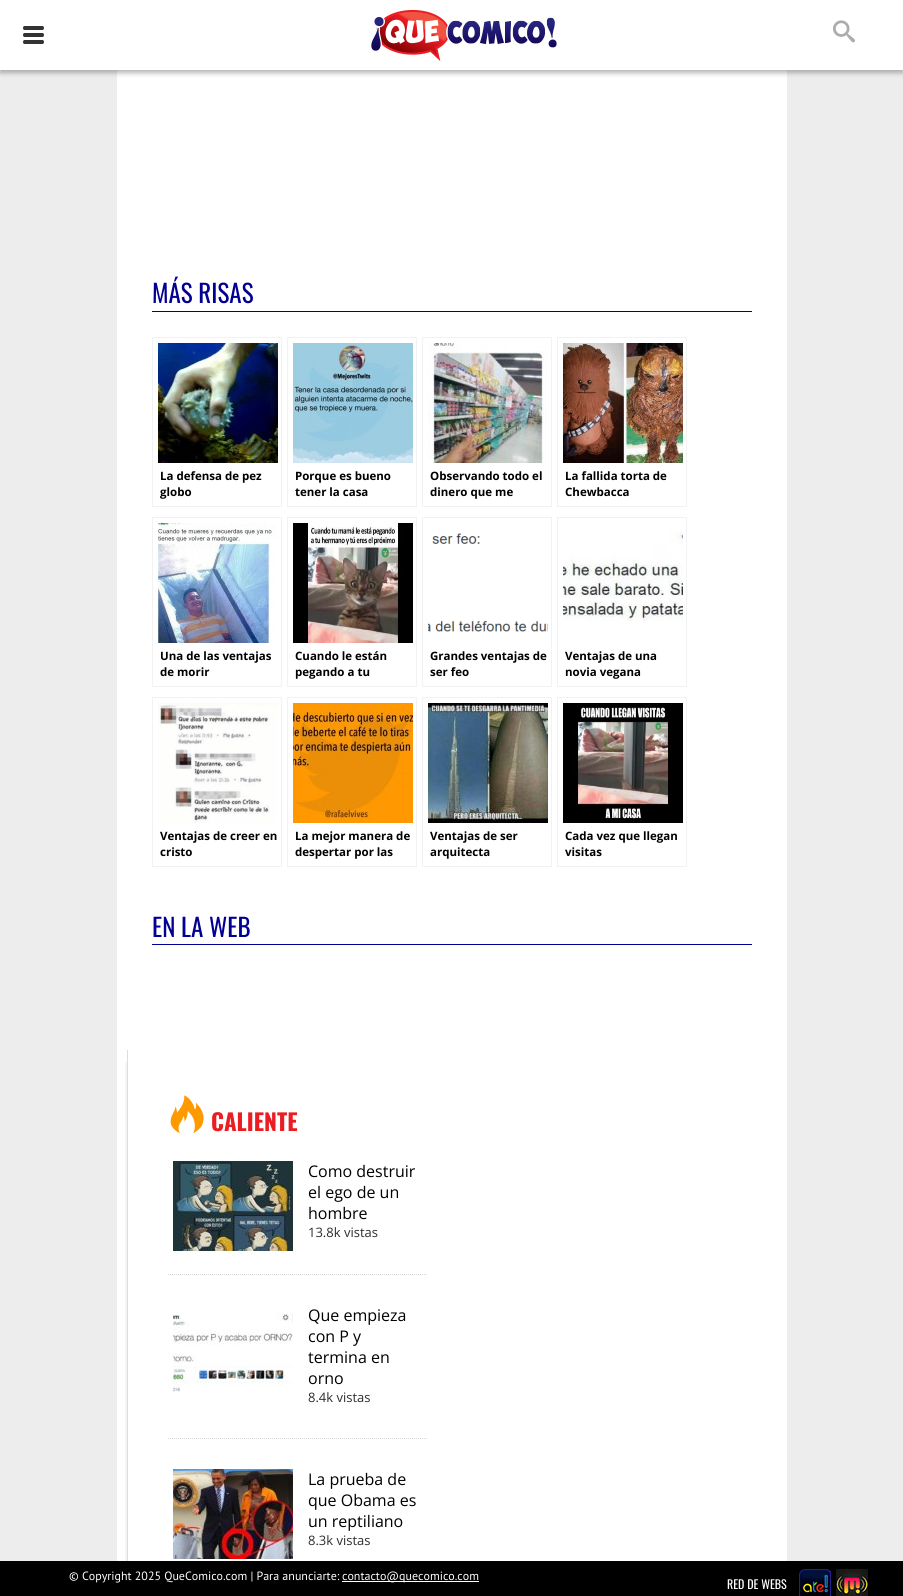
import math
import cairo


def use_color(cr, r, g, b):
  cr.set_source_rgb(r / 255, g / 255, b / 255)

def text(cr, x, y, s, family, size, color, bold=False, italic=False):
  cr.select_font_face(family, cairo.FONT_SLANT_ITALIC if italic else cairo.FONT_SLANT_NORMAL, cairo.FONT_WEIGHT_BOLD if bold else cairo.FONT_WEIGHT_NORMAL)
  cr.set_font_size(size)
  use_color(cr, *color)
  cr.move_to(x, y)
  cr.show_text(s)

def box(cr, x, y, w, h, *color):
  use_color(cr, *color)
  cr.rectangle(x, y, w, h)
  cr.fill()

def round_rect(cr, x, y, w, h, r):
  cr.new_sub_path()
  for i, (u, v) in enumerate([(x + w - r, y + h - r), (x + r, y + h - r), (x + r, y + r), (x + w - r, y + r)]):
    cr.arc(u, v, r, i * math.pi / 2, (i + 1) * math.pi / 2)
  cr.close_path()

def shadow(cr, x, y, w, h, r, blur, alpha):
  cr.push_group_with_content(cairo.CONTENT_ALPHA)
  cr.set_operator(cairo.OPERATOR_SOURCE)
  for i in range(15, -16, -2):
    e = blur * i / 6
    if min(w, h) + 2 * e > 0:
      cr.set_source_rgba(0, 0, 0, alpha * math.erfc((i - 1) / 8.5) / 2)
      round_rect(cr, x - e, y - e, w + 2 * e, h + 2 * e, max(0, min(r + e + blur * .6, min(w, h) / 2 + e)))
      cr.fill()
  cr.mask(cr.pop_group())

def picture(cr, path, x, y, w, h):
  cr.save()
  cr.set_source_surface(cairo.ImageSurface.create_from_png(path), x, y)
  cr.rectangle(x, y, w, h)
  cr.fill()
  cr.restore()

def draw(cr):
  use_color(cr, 237, 237, 237)
  cr.paint()
  box(cr, 117, 70, 670, 1491, 255, 255, 255)
  use_color(cr, 100, 100, 100)
  shadow(cr, 0, 3, 903, 70, 0, 2.5, 0.49)
  box(cr, 0, 0, 903, 70, 255, 255, 255)
  picture(cr, "img_01.png", 23, 26, 21, 18)
  picture(cr, "img_02.png", 371, 10, 186, 51)
  picture(cr, "img_03.png", 833, 20, 22, 23)
  box(cr, 152, 311, 600, 1, 2, 0, 147)
  cr.rectangle(152.5, 337.5, 129, 169)
  use_color(cr, 242, 242, 242)
  cr.set_line_width(1)
  cr.stroke()
  picture(cr, "img_04.png", 158, 343, 120, 120)
  cr.rectangle(287.5, 337.5, 129, 169)
  cr.stroke()
  picture(cr, "img_05.png", 293, 343, 120, 120)
  cr.rectangle(422.5, 337.5, 129, 169)
  cr.stroke()
  picture(cr, "img_06.png", 428, 343, 120, 120)
  cr.rectangle(557.5, 337.5, 129, 169)
  cr.stroke()
  picture(cr, "img_07.png", 563, 343, 120, 120)
  cr.rectangle(152.5, 517.5, 129, 169)
  cr.stroke()
  picture(cr, "img_08.png", 158, 523, 119, 120)
  cr.rectangle(287.5, 517.5, 129, 169)
  cr.stroke()
  picture(cr, "img_09.png", 293, 523, 120, 120)
  cr.rectangle(422.5, 517.5, 129, 169)
  cr.stroke()
  picture(cr, "img_10.png", 428, 533, 120, 99)
  cr.rectangle(557.5, 517.5, 129, 169)
  cr.stroke()
  picture(cr, "img_11.png", 563, 531, 120, 90)
  cr.rectangle(152.5, 697.5, 129, 169)
  cr.stroke()
  picture(cr, "img_12.png", 158, 703, 120, 120)
  cr.rectangle(287.5, 697.5, 129, 169)
  cr.stroke()
  picture(cr, "img_13.png", 293, 703, 120, 120)
  cr.rectangle(422.5, 697.5, 129, 169)
  cr.stroke()
  picture(cr, "img_14.png", 428, 703, 120, 120)
  cr.rectangle(557.5, 697.5, 129, 169)
  cr.stroke()
  picture(cr, "img_15.png", 563, 703, 120, 120)
  box(cr, 152, 944, 600, 1, 2, 0, 147)
  cr.save()
  cr.rectangle(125, 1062, 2, 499)
  cr.clip()
  use_color(cr, 0, 0, 0)
  shadow(cr, 133, 1063, 630, 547, 0, 4.5, 0.67)
  cr.restore()
  box(cr, 127, 1050, 1, 511, 221, 221, 221)
  picture(cr, "img_16.png", 170, 1095, 34, 39)
  cr.new_path()
  cr.move_to(168, 1274.5)
  cr.line_to(428, 1274.5)
  use_color(cr, 215, 215, 215)
  cr.set_dash([1, 1])
  cr.stroke()
  picture(cr, "img_17.png", 173, 1161, 120, 90)
  cr.new_path()
  cr.move_to(168, 1438.5)
  cr.line_to(428, 1438.5)
  cr.stroke()
  picture(cr, "img_18.png", 173, 1313, 120, 80)
  picture(cr, "img_19.png", 173, 1469, 120, 90)
  box(cr, 0, 1561, 903, 35, 0, 0, 0)
  box(cr, 342, 1581, 137, 1, 255, 255, 255)
  picture(cr, "img_20.png", 799, 1569, 32, 27)
  picture(cr, "img_21.png", 836, 1569, 32, 27)
  text(cr, 152, 303, "MÁS RISAS", "Oswald", 25, (2, 0, 147))
  text(cr, 160, 480, "La defensa de pez", "Open Sans", 11.5, (0, 0, 0), bold=True)
  text(cr, 160, 496, "globo", "Open Sans", 11.5, (0, 0, 0), bold=True)
  text(cr, 295, 480, "Porque es bueno", "Open Sans", 11.5, (0, 0, 0), bold=True)
  text(cr, 295, 496, "tener la casa", "Open Sans", 11.5, (0, 0, 0), bold=True)
  text(cr, 430, 480, "Observando todo el", "Open Sans", 11.5, (0, 0, 0), bold=True)
  text(cr, 430, 496, "dinero que me", "Open Sans", 11.5, (0, 0, 0), bold=True)
  text(cr, 565, 480, "La fallida torta de", "Open Sans", 11.5, (0, 0, 0), bold=True)
  text(cr, 565, 496, "Chewbacca", "Open Sans", 11.5, (0, 0, 0), bold=True)
  text(cr, 160, 660, "Una de las ventajas", "Open Sans", 11.5, (0, 0, 0), bold=True)
  text(cr, 160, 676, "de morir", "Open Sans", 11.5, (0, 0, 0), bold=True)
  text(cr, 295, 660, "Cuando le están", "Open Sans", 11.5, (0, 0, 0), bold=True)
  text(cr, 295, 676, "pegando a tu", "Open Sans", 11.5, (0, 0, 0), bold=True)
  text(cr, 430, 660, "Grandes ventajas de", "Open Sans", 11.5, (0, 0, 0), bold=True)
  text(cr, 430, 676, "ser feo", "Open Sans", 11.5, (0, 0, 0), bold=True)
  text(cr, 565, 660, "Ventajas de una", "Open Sans", 11.5, (0, 0, 0), bold=True)
  text(cr, 565, 676, "novia vegana", "Open Sans", 11.5, (0, 0, 0), bold=True)
  text(cr, 160, 840, "Ventajas de creer en", "Open Sans", 11.5, (0, 0, 0), bold=True)
  text(cr, 160, 856, "cristo", "Open Sans", 11.5, (0, 0, 0), bold=True)
  text(cr, 295, 840, "La mejor manera de", "Open Sans", 11.5, (0, 0, 0), bold=True)
  text(cr, 295, 856, "despertar por las", "Open Sans", 11.5, (0, 0, 0), bold=True)
  text(cr, 430, 840, "Ventajas de ser", "Open Sans", 11.5, (0, 0, 0), bold=True)
  text(cr, 430, 856, "arquitecta", "Open Sans", 11.5, (0, 0, 0), bold=True)
  text(cr, 565, 840, "Cada vez que llegan", "Open Sans", 11.5, (0, 0, 0), bold=True)
  text(cr, 565, 856, "visitas", "Open Sans", 11.5, (0, 0, 0), bold=True)
  text(cr, 152, 937, "EN LA WEB", "Oswald", 25, (2, 0, 147))
  text(cr, 211, 1131, "CALIENTE", "Oswald", 23, (236, 28, 35), bold=True)
  text(cr, 308, 1177, "Como destruir", "Open Sans", 16, (0, 0, 0))
  text(cr, 308, 1198, "el ego de un", "Open Sans", 16, (0, 0, 0))
  text(cr, 308, 1219, "hombre", "Open Sans", 16, (0, 0, 0))
  text(cr, 308, 1237, "13.8k vistas", "Open Sans", 13, (45, 45, 45))
  text(cr, 308, 1321, "Que empieza", "Open Sans", 16, (0, 0, 0))
  text(cr, 308, 1342, "con P y", "Open Sans", 16, (0, 0, 0))
  text(cr, 308, 1363, "termina en", "Open Sans", 16, (0, 0, 0))
  text(cr, 308, 1384, "orno", "Open Sans", 16, (0, 0, 0))
  text(cr, 308, 1402, "8.4k vistas", "Open Sans", 13, (45, 45, 45))
  text(cr, 308, 1485, "La prueba de", "Open Sans", 16, (0, 0, 0))
  text(cr, 308, 1506, "que Obama es", "Open Sans", 16, (0, 0, 0))
  text(cr, 308, 1527, "un reptiliano", "Open Sans", 16, (0, 0, 0))
  text(cr, 308, 1545, "8.3k vistas", "Open Sans", 13, (45, 45, 45))
  text(cr, 69, 1580, "© Copyright 2025 QueComico.com | Para anunciarte:", "PT Sans", 12, (255, 255, 255))
  text(cr, 342, 1580, "contacto@quecomico.com", "PT Sans", 12, (255, 255, 255))
  text(cr, 727, 1589, "RED DE WEBS", "Oswald", 12, (255, 255, 255))


surface = cairo.ImageSurface(cairo.FORMAT_RGB24, 903, 1596)
cr = cairo.Context(surface)
options = cairo.FontOptions()
options.set_hint_metrics(cairo.HINT_METRICS_OFF)
options.set_hint_style(cairo.HINT_STYLE_NONE)
cr.set_font_options(options)
cr.set_miter_limit(4)
draw(cr)
surface.write_to_png("out.png")
